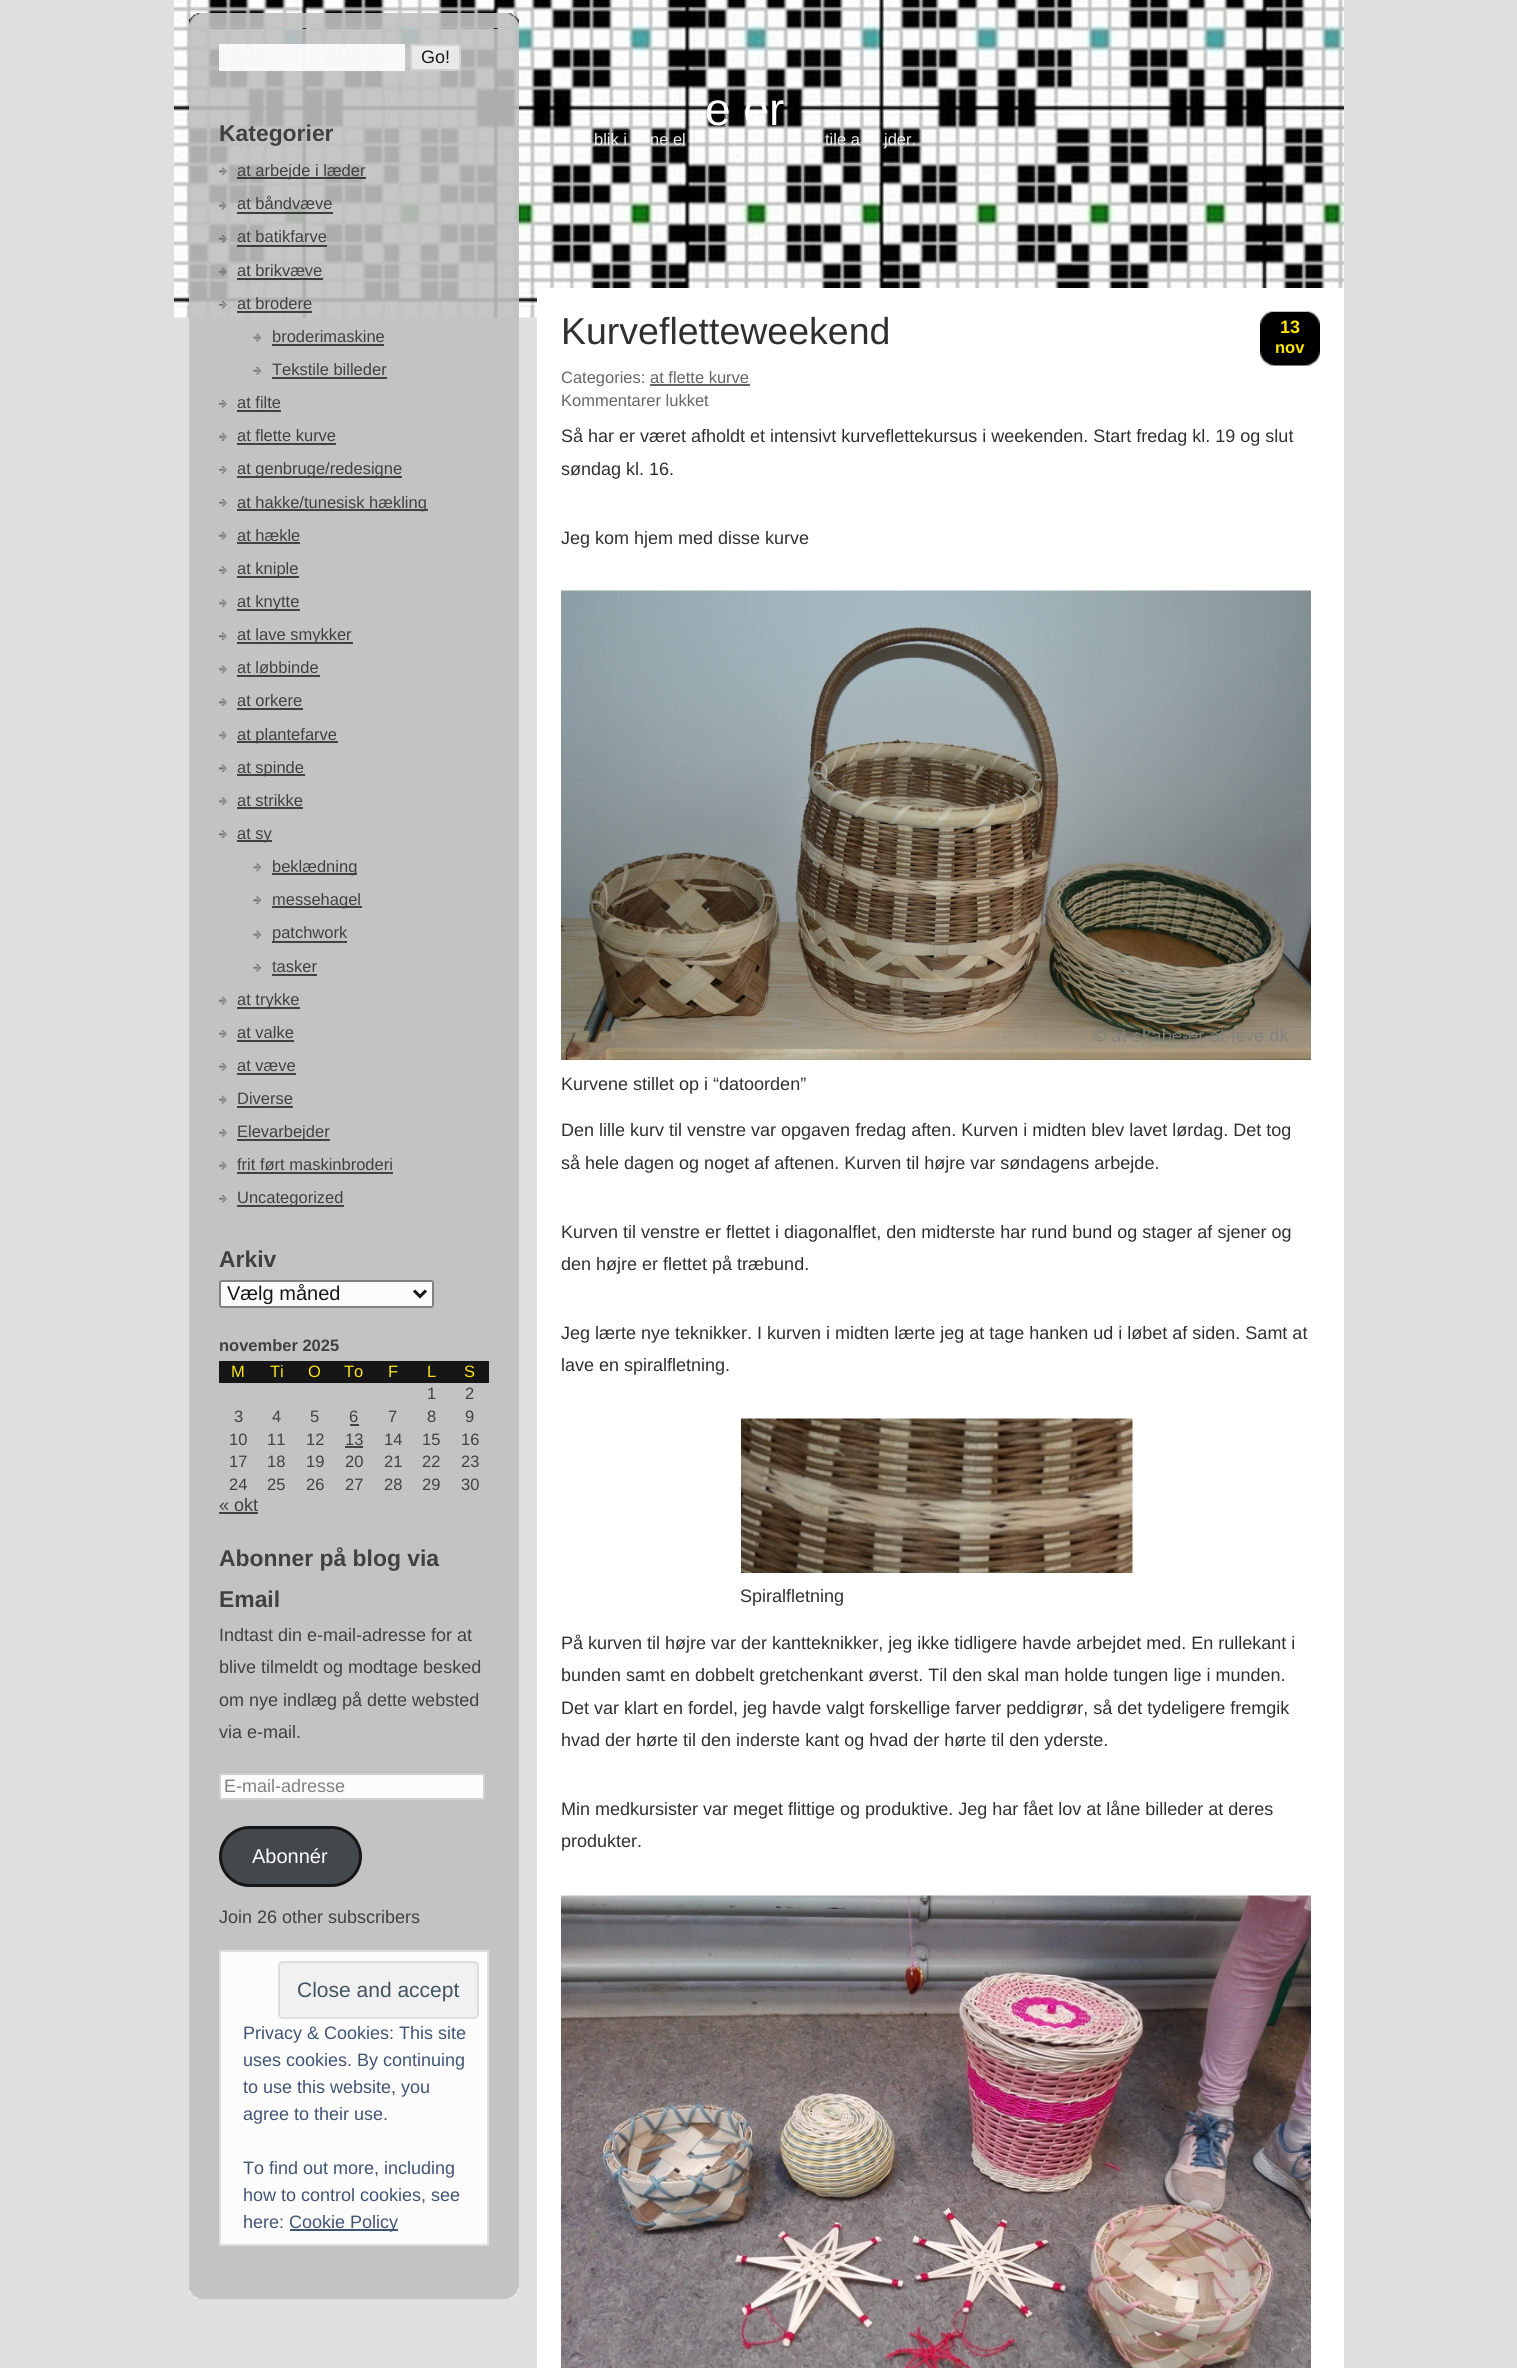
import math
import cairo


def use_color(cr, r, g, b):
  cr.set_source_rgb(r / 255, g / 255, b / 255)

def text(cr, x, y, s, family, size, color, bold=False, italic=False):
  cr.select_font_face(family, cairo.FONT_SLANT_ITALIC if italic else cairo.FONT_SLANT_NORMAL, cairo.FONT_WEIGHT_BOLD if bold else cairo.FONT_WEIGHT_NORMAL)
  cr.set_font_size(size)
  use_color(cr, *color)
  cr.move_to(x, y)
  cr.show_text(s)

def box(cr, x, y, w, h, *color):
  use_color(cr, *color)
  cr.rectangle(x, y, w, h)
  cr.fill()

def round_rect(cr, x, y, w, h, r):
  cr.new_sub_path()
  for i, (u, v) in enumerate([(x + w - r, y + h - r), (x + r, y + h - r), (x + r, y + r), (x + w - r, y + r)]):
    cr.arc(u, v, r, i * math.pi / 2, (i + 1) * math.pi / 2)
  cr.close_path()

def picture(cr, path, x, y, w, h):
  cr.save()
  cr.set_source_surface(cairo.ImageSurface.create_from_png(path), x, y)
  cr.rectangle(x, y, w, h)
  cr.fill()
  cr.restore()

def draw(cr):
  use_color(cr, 223, 223, 223)
  cr.paint()
  picture(cr, "img_01.png", 174, 0, 1170, 318)
  picture(cr, "img_02.png", 189, 13, 330, 15)
  cr.set_source_rgba(0.753, 0.753, 0.753, 0.9)
  cr.rectangle(189, 29, 330, 2256)
  cr.fill()
  cr.set_source_rgba(1, 1, 1, 0.9)
  cr.rectangle(219, 44, 186, 27)
  cr.fill()
  cr.set_source_rgba(0.937, 0.937, 0.937, 0.9)
  cr.rectangle(411, 45, 49, 25)
  cr.fill_preserve()
  use_color(cr, 209, 209, 209)
  cr.stroke()
  picture(cr, "img_03.png", 219, 167, 8, 8)
  cr.set_source_rgba(0.188, 0.188, 0.188, 0.9)
  cr.rectangle(237, 177, 129, 2)
  cr.fill()
  picture(cr, "img_04.png", 219, 201, 8, 9)
  cr.rectangle(237, 212, 96, 2)
  cr.fill()
  picture(cr, "img_05.png", 219, 235, 8, 8)
  cr.rectangle(237, 245, 90, 2)
  cr.fill()
  picture(cr, "img_06.png", 219, 267, 8, 9)
  cr.rectangle(237, 278, 86, 2)
  cr.fill()
  picture(cr, "img_07.png", 219, 301, 8, 8)
  cr.rectangle(237, 311, 75, 2)
  cr.fill()
  picture(cr, "img_08.png", 253, 333, 8, 9)
  box(cr, 272, 344, 112, 2, 66, 66, 66)
  picture(cr, "img_09.png", 253, 367, 8, 8)
  box(cr, 272, 377, 115, 2, 66, 66, 66)
  picture(cr, "img_10.png", 219, 400, 8, 8)
  box(cr, 237, 410, 44, 2, 66, 66, 66)
  picture(cr, "img_11.png", 219, 432, 8, 9)
  box(cr, 237, 443, 99, 2, 66, 66, 66)
  picture(cr, "img_10.png", 219, 466, 8, 8)
  box(cr, 237, 476, 165, 2, 66, 66, 66)
  picture(cr, "img_10.png", 219, 499, 8, 8)
  box(cr, 237, 509, 191, 2, 66, 66, 66)
  picture(cr, "img_12.png", 219, 531, 8, 9)
  box(cr, 237, 542, 63, 2, 66, 66, 66)
  picture(cr, "img_13.png", 219, 566, 8, 8)
  box(cr, 237, 576, 62, 2, 66, 66, 66)
  picture(cr, "img_14.png", 219, 599, 8, 9)
  box(cr, 237, 609, 63, 2, 66, 66, 66)
  picture(cr, "img_13.png", 219, 632, 8, 8)
  box(cr, 237, 642, 116, 2, 66, 66, 66)
  picture(cr, "img_14.png", 219, 665, 8, 9)
  box(cr, 237, 675, 83, 2, 66, 66, 66)
  picture(cr, "img_13.png", 219, 698, 8, 8)
  box(cr, 237, 708, 66, 2, 66, 66, 66)
  picture(cr, "img_14.png", 219, 731, 8, 9)
  box(cr, 237, 741, 101, 2, 66, 66, 66)
  picture(cr, "img_13.png", 219, 764, 8, 8)
  box(cr, 237, 774, 68, 2, 66, 66, 66)
  picture(cr, "img_14.png", 219, 797, 8, 9)
  box(cr, 237, 807, 66, 2, 66, 66, 66)
  picture(cr, "img_13.png", 219, 830, 8, 8)
  box(cr, 237, 840, 35, 2, 66, 66, 66)
  picture(cr, "img_15.png", 253, 863, 8, 9)
  box(cr, 272, 873, 85, 2, 66, 66, 66)
  picture(cr, "img_16.png", 253, 896, 8, 8)
  box(cr, 272, 906, 90, 2, 66, 66, 66)
  picture(cr, "img_08.png", 253, 930, 8, 9)
  box(cr, 272, 941, 75, 2, 66, 66, 66)
  picture(cr, "img_09.png", 253, 964, 8, 8)
  box(cr, 272, 974, 45, 2, 66, 66, 66)
  picture(cr, "img_12.png", 219, 996, 8, 9)
  box(cr, 237, 1007, 63, 2, 66, 66, 66)
  picture(cr, "img_10.png", 219, 1030, 8, 8)
  box(cr, 237, 1040, 57, 2, 66, 66, 66)
  picture(cr, "img_10.png", 219, 1063, 8, 8)
  box(cr, 237, 1073, 59, 2, 66, 66, 66)
  picture(cr, "img_12.png", 219, 1095, 8, 9)
  box(cr, 237, 1106, 56, 2, 66, 66, 66)
  picture(cr, "img_10.png", 219, 1129, 8, 8)
  box(cr, 237, 1139, 93, 2, 66, 66, 66)
  picture(cr, "img_12.png", 219, 1161, 8, 9)
  box(cr, 237, 1172, 156, 2, 66, 66, 66)
  picture(cr, "img_10.png", 219, 1195, 8, 8)
  box(cr, 237, 1205, 107, 2, 66, 66, 66)
  use_color(cr, 252, 252, 252)
  round_rect(cr, 220, 1281, 213, 26, 2)
  cr.fill_preserve()
  use_color(cr, 129, 129, 129)
  cr.stroke()
  cr.new_path()
  cr.move_to(414, 1290.5)
  cr.line_to(420, 1296.5)
  cr.line_to(426, 1290.5)
  use_color(cr, 22, 22, 22)
  cr.set_line_width(3)
  cr.stroke()
  box(cr, 219, 1361, 270, 22, 22, 22, 22)
  box(cr, 350, 1424, 9, 2, 66, 66, 66)
  box(cr, 345, 1446, 18, 2, 66, 66, 66)
  box(cr, 219, 1512, 39, 2, 66, 66, 66)
  use_color(cr, 252, 252, 252)
  cr.rectangle(220, 1774, 264, 25)
  cr.fill_preserve()
  use_color(cr, 208, 208, 208)
  cr.set_line_width(2)
  cr.stroke()
  use_color(cr, 67, 72, 76)
  round_rect(cr, 220.5, 1827.5, 140, 58, 29)
  cr.fill_preserve()
  use_color(cr, 22, 22, 22)
  cr.set_line_width(3)
  cr.stroke()
  use_color(cr, 252, 252, 252)
  cr.rectangle(220, 1951, 268, 294)
  cr.fill_preserve()
  use_color(cr, 222, 222, 222)
  cr.set_line_width(2)
  cr.stroke()
  use_color(cr, 241, 241, 241)
  round_rect(cr, 279, 1962, 199, 56, 4)
  cr.fill_preserve()
  use_color(cr, 222, 222, 222)
  cr.stroke()
  box(cr, 290, 2229, 108, 2, 64, 84, 115)
  picture(cr, "img_17.png", 189, 2285, 330, 14)
  box(cr, 537, 288, 807, 2080, 255, 255, 255)
  picture(cr, "img_18.png", 1260, 311, 60, 55)
  box(cr, 650, 384, 100, 2, 102, 102, 102)
  picture(cr, "img_19.png", 561, 590, 750, 470)
  picture(cr, "img_20.png", 741, 1418, 392, 155)
  picture(cr, "img_21.png", 561, 1895, 750, 473)
  text(cr, 421, 63, "Go!", "Liberation Sans", 18, (23, 23, 23))
  text(cr, 219, 141, "Kategorier", "Liberation Sans", 22.9, (65, 65, 65), bold=True)
  text(cr, 237, 176, "at arbejde i læder", "Liberation Sans", 16.5, (65, 65, 65))
  text(cr, 237, 209, "at båndvæve", "Liberation Sans", 16.5, (65, 65, 65))
  text(cr, 237, 242, "at batikfarve", "Liberation Sans", 16.5, (65, 65, 65))
  text(cr, 237, 276, "at brikvæve", "Liberation Sans", 16.5, (65, 65, 65))
  text(cr, 237, 309, "at brodere", "Liberation Sans", 16.5, (65, 65, 65))
  text(cr, 272, 342, "broderimaskine", "Liberation Sans", 16.5, (65, 65, 65))
  text(cr, 272, 375, "Tekstile billeder", "Liberation Sans", 16.5, (65, 65, 65))
  text(cr, 237, 408, "at filte", "Liberation Sans", 16.5, (65, 65, 65))
  text(cr, 237, 441, "at flette kurve", "Liberation Sans", 16.5, (65, 65, 65))
  text(cr, 237, 474, "at genbruge/redesigne", "Liberation Sans", 16.5, (65, 65, 65))
  text(cr, 237, 508, "at hakke/tunesisk hækling", "Liberation Sans", 16.5, (65, 65, 65))
  text(cr, 237, 541, "at hækle", "Liberation Sans", 16.5, (65, 65, 65))
  text(cr, 237, 574, "at kniple", "Liberation Sans", 16.5, (65, 65, 65))
  text(cr, 237, 607, "at knytte", "Liberation Sans", 16.5, (65, 65, 65))
  text(cr, 237, 640, "at lave smykker", "Liberation Sans", 16.5, (65, 65, 65))
  text(cr, 237, 673, "at løbbinde", "Liberation Sans", 16.5, (65, 65, 65))
  text(cr, 237, 706, "at orkere", "Liberation Sans", 16.5, (65, 65, 65))
  text(cr, 237, 740, "at plantefarve", "Liberation Sans", 16.5, (65, 65, 65))
  text(cr, 237, 773, "at spinde", "Liberation Sans", 16.5, (65, 65, 65))
  text(cr, 237, 806, "at strikke", "Liberation Sans", 16.5, (65, 65, 65))
  text(cr, 237, 839, "at sy", "Liberation Sans", 16.5, (65, 65, 65))
  text(cr, 272, 872, "beklædning", "Liberation Sans", 16.5, (65, 65, 65))
  text(cr, 272, 905, "messehagel", "Liberation Sans", 16.5, (65, 65, 65))
  text(cr, 272, 938, "patchwork", "Liberation Sans", 16.5, (65, 65, 65))
  text(cr, 272, 972, "tasker", "Liberation Sans", 16.5, (65, 65, 65))
  text(cr, 237, 1005, "at trykke", "Liberation Sans", 16.5, (65, 65, 65))
  text(cr, 237, 1038, "at valke", "Liberation Sans", 16.5, (65, 65, 65))
  text(cr, 237, 1071, "at væve", "Liberation Sans", 16.5, (65, 65, 65))
  text(cr, 237, 1104, "Diverse", "Liberation Sans", 16.5, (65, 65, 65))
  text(cr, 237, 1137, "Elevarbejder", "Liberation Sans", 16.5, (65, 65, 65))
  text(cr, 237, 1170, "frit ført maskinbroderi", "Liberation Sans", 16.5, (65, 65, 65))
  text(cr, 237, 1203, "Uncategorized", "Liberation Sans", 16.5, (65, 65, 65))
  text(cr, 219, 1267, "Arkiv", "Liberation Sans", 22.9, (65, 65, 65), bold=True)
  text(cr, 227, 1300, "Vælg måned", "Liberation Sans", 20, (23, 23, 23))
  text(cr, 219, 1351, "november 2025", "Liberation Sans", 16.5, (65, 65, 65), bold=True)
  text(cr, 231, 1377, "M", "Liberation Sans", 16.5, (252, 228, 22))
  text(cr, 270, 1377, "Ti", "Liberation Sans", 16.5, (252, 228, 22))
  text(cr, 308, 1377, "O", "Liberation Sans", 16.5, (252, 228, 22))
  text(cr, 344, 1377, "To", "Liberation Sans", 16.5, (252, 228, 22))
  text(cr, 388, 1377, "F", "Liberation Sans", 16.5, (252, 228, 22))
  text(cr, 427, 1377, "L", "Liberation Sans", 16.5, (252, 228, 22))
  text(cr, 464, 1377, "S", "Liberation Sans", 16.5, (252, 228, 22))
  text(cr, 427, 1399, "1", "Liberation Sans", 16.5, (65, 65, 65))
  text(cr, 465, 1399, "2", "Liberation Sans", 16.5, (65, 65, 65))
  text(cr, 234, 1422, "3", "Liberation Sans", 16.5, (65, 65, 65))
  text(cr, 272, 1422, "4", "Liberation Sans", 16.5, (65, 65, 65))
  text(cr, 310, 1422, "5", "Liberation Sans", 16.5, (65, 65, 65))
  text(cr, 349, 1422, "6", "Liberation Sans", 16.5, (65, 65, 65))
  text(cr, 388, 1422, "7", "Liberation Sans", 16.5, (65, 65, 65))
  text(cr, 427, 1422, "8", "Liberation Sans", 16.5, (65, 65, 65))
  text(cr, 465, 1422, "9", "Liberation Sans", 16.5, (65, 65, 65))
  text(cr, 229, 1445, "10", "Liberation Sans", 16.5, (65, 65, 65))
  text(cr, 267, 1445, "11", "Liberation Sans", 16.5, (65, 65, 65))
  text(cr, 306, 1445, "12", "Liberation Sans", 16.5, (65, 65, 65))
  text(cr, 345, 1445, "13", "Liberation Sans", 16.5, (65, 65, 65))
  text(cr, 384, 1445, "14", "Liberation Sans", 16.5, (65, 65, 65))
  text(cr, 422, 1445, "15", "Liberation Sans", 16.5, (65, 65, 65))
  text(cr, 461, 1445, "16", "Liberation Sans", 16.5, (65, 65, 65))
  text(cr, 229, 1467, "17", "Liberation Sans", 16.5, (65, 65, 65))
  text(cr, 267, 1467, "18", "Liberation Sans", 16.5, (65, 65, 65))
  text(cr, 306, 1467, "19", "Liberation Sans", 16.5, (65, 65, 65))
  text(cr, 345, 1467, "20", "Liberation Sans", 16.5, (65, 65, 65))
  text(cr, 384, 1467, "21", "Liberation Sans", 16.5, (65, 65, 65))
  text(cr, 422, 1467, "22", "Liberation Sans", 16.5, (65, 65, 65))
  text(cr, 461, 1467, "23", "Liberation Sans", 16.5, (65, 65, 65))
  text(cr, 229, 1490, "24", "Liberation Sans", 16.5, (65, 65, 65))
  text(cr, 267, 1490, "25", "Liberation Sans", 16.5, (65, 65, 65))
  text(cr, 306, 1490, "26", "Liberation Sans", 16.5, (65, 65, 65))
  text(cr, 345, 1490, "27", "Liberation Sans", 16.5, (65, 65, 65))
  text(cr, 384, 1490, "28", "Liberation Sans", 16.5, (65, 65, 65))
  text(cr, 422, 1490, "29", "Liberation Sans", 16.5, (65, 65, 65))
  text(cr, 461, 1490, "30", "Liberation Sans", 16.5, (65, 65, 65))
  text(cr, 219, 1511, "« okt", "Liberation Sans", 18, (65, 65, 65))
  text(cr, 219, 1566, "Abonner på blog via", "Liberation Sans", 22.9, (65, 65, 65), bold=True)
  text(cr, 219, 1607, "Email", "Liberation Sans", 22.9, (65, 65, 65), bold=True)
  text(cr, 219, 1641, "Indtast din e-mail-adresse for at", "Liberation Sans", 18, (65, 65, 65))
  text(cr, 219, 1673, "blive tilmeldt og modtage besked", "Liberation Sans", 18, (65, 65, 65))
  text(cr, 219, 1706, "om nye indlæg på dette websted", "Liberation Sans", 18, (65, 65, 65))
  text(cr, 219, 1738, "via e-mail.", "Liberation Sans", 18, (65, 65, 65))
  text(cr, 224, 1792, "E-mail-adresse", "Liberation Sans", 18, (128, 128, 128))
  text(cr, 252, 1863, "Abonnér", "Liberation Sans", 20, (255, 255, 255))
  text(cr, 219, 1923, "Join 26 other subscribers", "Liberation Sans", 18, (65, 65, 65))
  text(cr, 297, 1997, "Close and accept", "Liberation Sans", 21, (64, 84, 97))
  text(cr, 243, 2039, "Privacy & Cookies: This site", "Liberation Sans", 18, (64, 84, 115))
  text(cr, 243, 2066, "uses cookies. By continuing", "Liberation Sans", 18, (64, 84, 115))
  text(cr, 243, 2093, "to use this website, you", "Liberation Sans", 18, (64, 84, 115))
  text(cr, 243, 2120, "agree to their use.", "Liberation Sans", 18, (64, 84, 115))
  text(cr, 243, 2174, "To find out more, including", "Liberation Sans", 18, (64, 84, 115))
  text(cr, 243, 2201, "how to control cookies, see", "Liberation Sans", 18, (64, 84, 115))
  text(cr, 243, 2228, "here:", "Liberation Sans", 18, (64, 84, 115))
  text(cr, 289, 2228, "Cookie Policy", "Liberation Sans", 18, (64, 84, 115))
  text(cr, 705, 125, "e er", "Liberation Sans", 46, (255, 255, 255))
  text(cr, 594, 145, "blik i", "Liberation Sans", 16.5, (238, 238, 238))
  text(cr, 650, 145, "ne el", "Liberation Sans", 16.5, (238, 238, 238))
  text(cr, 825, 145, "tile a", "Liberation Sans", 16.5, (238, 238, 238))
  text(cr, 884, 145, "jder.", "Liberation Sans", 16.5, (238, 238, 238))
  text(cr, 561, 344, "Kurvefletteweekend", "Liberation Sans", 37.5, (48, 48, 48))
  text(cr, 1280, 333, "13", "Liberation Sans", 18, (255, 228, 0), bold=True)
  text(cr, 1275, 353, "nov", "Liberation Sans", 16.5, (255, 228, 0), bold=True)
  text(cr, 561, 383, "Categories: at flette kurve", "Liberation Sans", 16.5, (102, 102, 102))
  text(cr, 561, 406, "Kommentarer lukket", "Liberation Sans", 16.5, (102, 102, 102))
  text(cr, 561, 442, "Så har er været afholdt et intensivt kurveflettekursus i weekenden. Start fredag kl. 19 og slut", "Liberation Sans", 18, (48, 48, 48))
  text(cr, 561, 475, "søndag kl. 16.", "Liberation Sans", 18, (48, 48, 48))
  text(cr, 561, 544, "Jeg kom hjem med disse kurve", "Liberation Sans", 18, (48, 48, 48))
  text(cr, 561, 1090, "Kurvene stillet op i “datoorden”", "Liberation Sans", 18, (48, 48, 48))
  text(cr, 561, 1136, "Den lille kurv til venstre var opgaven fredag aften. Kurven i midten blev lavet lørdag. Det tog", "Liberation Sans", 18, (48, 48, 48))
  text(cr, 561, 1169, "så hele dagen og noget af aftenen. Kurven til højre var søndagens arbejde.", "Liberation Sans", 18, (48, 48, 48))
  text(cr, 561, 1238, "Kurven til venstre er flettet i diagonalflet, den midterste har rund bund og stager af sjener og", "Liberation Sans", 18, (48, 48, 48))
  text(cr, 561, 1270, "den højre er flettet på træbund.", "Liberation Sans", 18, (48, 48, 48))
  text(cr, 561, 1339, "Jeg lærte nye teknikker. I kurven i midten lærte jeg at tage hanken ud i løbet af siden. Samt at", "Liberation Sans", 18, (48, 48, 48))
  text(cr, 561, 1371, "lave en spiralfletning.", "Liberation Sans", 18, (48, 48, 48))
  text(cr, 740, 1602, "Spiralfletning", "Liberation Sans", 18, (48, 48, 48))
  text(cr, 561, 1649, "På kurven til højre var der kantteknikker, jeg ikke tidligere havde arbejdet med. En rullekant i", "Liberation Sans", 18, (48, 48, 48))
  text(cr, 561, 1681, "bunden samt en dobbelt gretchenkant øverst. Til den skal man holde tungen lige i munden.", "Liberation Sans", 18, (48, 48, 48))
  text(cr, 561, 1714, "Det var klart en fordel, jeg havde valgt forskellige farver peddigrør, så det tydeligere fremgik", "Liberation Sans", 18, (48, 48, 48))
  text(cr, 561, 1746, "hvad der hørte til den inderste kant og hvad der hørte til den yderste.", "Liberation Sans", 18, (48, 48, 48))
  text(cr, 561, 1815, "Min medkursister var meget flittige og produktive. Jeg har fået lov at låne billeder at deres", "Liberation Sans", 18, (48, 48, 48))
  text(cr, 561, 1847, "produkter.", "Liberation Sans", 18, (48, 48, 48))


surface = cairo.ImageSurface(cairo.FORMAT_RGB24, 1517, 2368)
cr = cairo.Context(surface)
options = cairo.FontOptions()
options.set_hint_metrics(cairo.HINT_METRICS_OFF)
options.set_hint_style(cairo.HINT_STYLE_NONE)
cr.set_font_options(options)
cr.set_miter_limit(4)
draw(cr)
surface.write_to_png("out.png")
